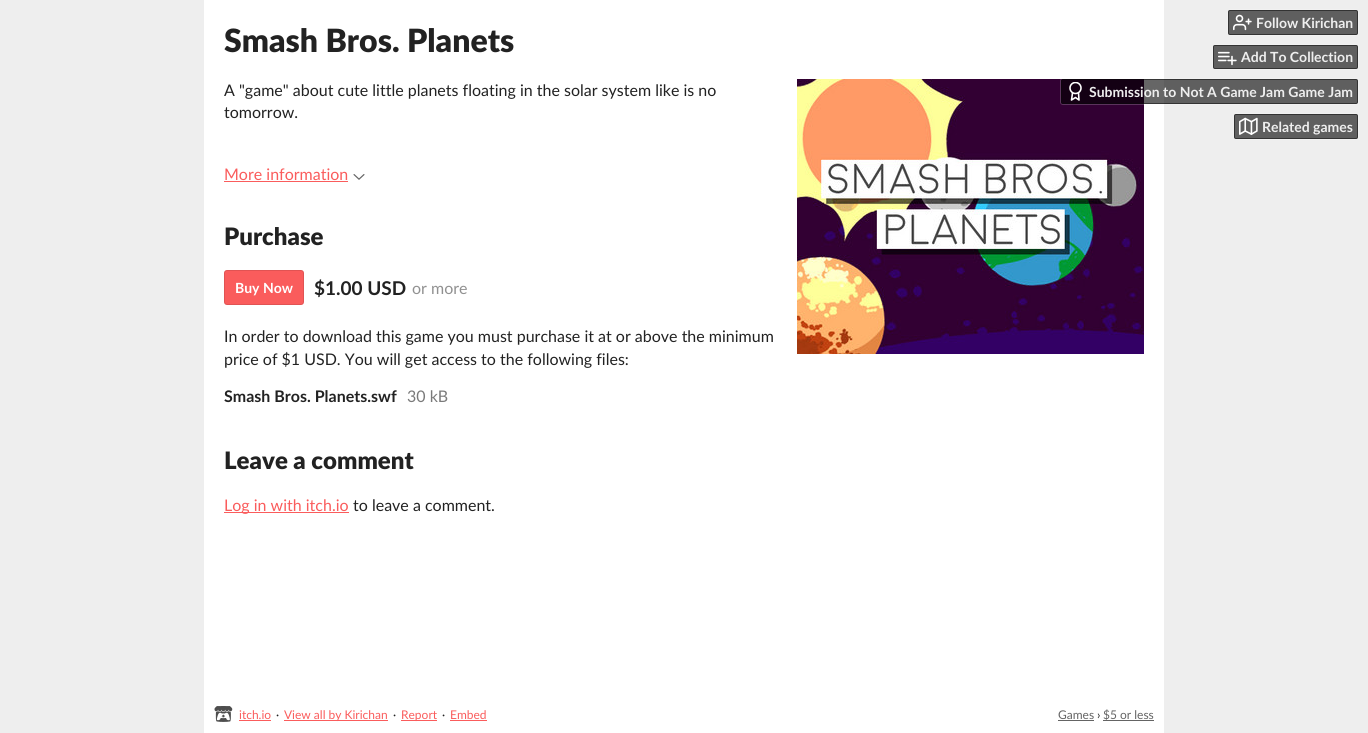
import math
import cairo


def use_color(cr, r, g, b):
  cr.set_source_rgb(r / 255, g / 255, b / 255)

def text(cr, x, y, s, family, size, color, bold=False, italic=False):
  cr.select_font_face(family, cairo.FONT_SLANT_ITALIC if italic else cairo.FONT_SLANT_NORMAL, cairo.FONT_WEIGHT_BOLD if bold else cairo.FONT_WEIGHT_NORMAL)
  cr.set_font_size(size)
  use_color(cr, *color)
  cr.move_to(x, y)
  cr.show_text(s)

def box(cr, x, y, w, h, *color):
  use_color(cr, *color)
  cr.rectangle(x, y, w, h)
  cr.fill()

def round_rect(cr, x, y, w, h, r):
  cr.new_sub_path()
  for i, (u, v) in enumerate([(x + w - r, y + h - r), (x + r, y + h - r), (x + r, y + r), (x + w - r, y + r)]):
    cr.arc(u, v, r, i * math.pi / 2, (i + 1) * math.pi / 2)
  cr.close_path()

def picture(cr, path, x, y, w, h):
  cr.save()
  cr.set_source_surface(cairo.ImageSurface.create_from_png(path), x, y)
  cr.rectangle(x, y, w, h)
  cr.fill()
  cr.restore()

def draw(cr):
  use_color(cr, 238, 238, 238)
  cr.paint()
  box(cr, 204, 0, 960, 733, 255, 255, 255)
  box(cr, 224, 181, 124, 1, 250, 92, 92)
  picture(cr, "img_01.png", 353, 174, 12, 6)
  round_rect(cr, 224, 270, 80, 35, 3)
  cr.fill()
  round_rect(cr, 224.5, 270.5, 79, 34, 2.5)
  cr.set_source_rgba(0, 0, 0, 0.1)
  cr.set_line_width(1)
  cr.stroke()
  box(cr, 224, 512, 125, 1, 250, 92, 92)
  picture(cr, "img_02.png", 797, 79, 347, 275)
  picture(cr, "img_03.png", 214, 706, 19, 16)
  box(cr, 239, 720, 32, 1, 250, 92, 92)
  box(cr, 284, 720, 104, 1, 250, 92, 92)
  box(cr, 401, 720, 36, 1, 250, 92, 92)
  box(cr, 450, 720, 37, 1, 250, 92, 92)
  box(cr, 1058, 720, 36, 1, 100, 100, 100)
  box(cr, 1103, 720, 51, 1, 100, 100, 100)
  round_rect(cr, 1227.5, 9.5, 131, 26, 2.5)
  use_color(cr, 241, 241, 241)
  cr.stroke()
  use_color(cr, 95, 95, 95)
  round_rect(cr, 1228, 10, 130, 25, 2)
  cr.fill()
  round_rect(cr, 1228.5, 10.5, 129, 24, 1.5)
  cr.set_source_rgba(0.039, 0.039, 0.039, 0.5)
  cr.stroke()
  picture(cr, "img_04.png", 1233, 14, 19, 17)
  round_rect(cr, 1212.5, 44.5, 146, 25, 2.5)
  use_color(cr, 241, 241, 241)
  cr.stroke()
  use_color(cr, 95, 95, 95)
  round_rect(cr, 1213, 45, 145, 24, 2)
  cr.fill()
  round_rect(cr, 1213.5, 45.5, 144, 23, 1.5)
  cr.set_source_rgba(0.039, 0.039, 0.039, 0.5)
  cr.stroke()
  picture(cr, "img_05.png", 1218, 51, 19, 15)
  round_rect(cr, 1060.5, 78.5, 298, 26, 2.5)
  cr.set_source_rgba(1, 1, 1, 0.2)
  cr.stroke()
  cr.set_source_rgba(0, 0, 0, 0.6)
  round_rect(cr, 1061, 79, 297, 25, 2)
  cr.fill()
  round_rect(cr, 1061.5, 79.5, 296, 24, 1.5)
  cr.set_source_rgba(0.039, 0.039, 0.039, 0.5)
  cr.stroke()
  cr.save()
  cr.rectangle(1066, 82, 19, 19)
  cr.clip()
  cr.arc(1075.5, 88, 5.5, 0, 2 * math.pi)
  use_color(cr, 255, 255, 255)
  cr.set_line_width(1.6)
  cr.stroke()
  cr.restore()
  cr.new_path()
  cr.move_to(1072.5, 93)
  cr.line_to(1071.5, 100)
  cr.line_to(1075.5, 97.5)
  cr.line_to(1079, 100)
  cr.line_to(1078.5, 93)
  use_color(cr, 255, 255, 255)
  cr.set_line_width(1.6)
  cr.set_line_cap(cairo.LINE_CAP_ROUND)
  cr.set_line_join(cairo.LINE_JOIN_ROUND)
  cr.stroke()
  round_rect(cr, 1233.5, 113.5, 125, 26, 2.5)
  use_color(cr, 241, 241, 241)
  cr.set_line_width(1)
  cr.set_line_cap(cairo.LINE_CAP_BUTT)
  cr.set_line_join(cairo.LINE_JOIN_MITER)
  cr.stroke()
  use_color(cr, 95, 95, 95)
  round_rect(cr, 1234, 114, 124, 25, 2)
  cr.fill()
  round_rect(cr, 1234.5, 114.5, 123, 24, 1.5)
  cr.set_source_rgba(0.039, 0.039, 0.039, 0.5)
  cr.stroke()
  picture(cr, "img_06.png", 1239, 117, 19, 18)
  text(cr, 224, 52, "Smash Bros. Planets", "Lato Black", 32, (34, 34, 34))
  text(cr, 224, 96, "A \"game\" about cute little planets floating in the solar system like is no", "Lato", 16, (34, 34, 34))
  text(cr, 224, 118, "tomorrow.", "Lato", 16, (34, 34, 34))
  text(cr, 224, 180, "More information", "Lato", 16, (250, 92, 92))
  text(cr, 224, 245, "Purchase", "Lato Black", 24, (34, 34, 34))
  text(cr, 235, 293, "Buy Now", "Lato", 14, (255, 255, 255), bold=True)
  text(cr, 314, 295, "$1.00 USD", "Lato", 19, (34, 34, 34), bold=True)
  text(cr, 412, 294, "or more", "Lato", 16, (145, 145, 145))
  text(cr, 224, 342, "In order to download this game you must purchase it at or above the minimum", "Lato", 16, (34, 34, 34))
  text(cr, 224, 365, "price of $1 USD. You will get access to the following files:", "Lato", 16, (34, 34, 34))
  text(cr, 224, 402, "Smash Bros. Planets.swf", "Lato", 16, (34, 34, 34), bold=True)
  text(cr, 407, 402, "30 kB", "Lato", 16, (122, 122, 122))
  text(cr, 224, 469, "Leave a comment", "Lato Black", 24, (34, 34, 34))
  text(cr, 224, 511, "Log in with itch.io", "Lato", 16, (250, 92, 92))
  text(cr, 353, 511, "to leave a comment.", "Lato", 16, (34, 34, 34))
  text(cr, 239, 719, "itch.io", "Lato", 12, (250, 92, 92))
  text(cr, 276, 719, "·", "Lato", 12, (34, 34, 34))
  text(cr, 284, 719, "View all by Kirichan", "Lato", 12, (250, 92, 92))
  text(cr, 393, 719, "·", "Lato", 12, (34, 34, 34))
  text(cr, 401, 719, "Report", "Lato", 12, (250, 92, 92))
  text(cr, 442, 719, "·", "Lato", 12, (34, 34, 34))
  text(cr, 450, 719, "Embed", "Lato", 12, (250, 92, 92))
  text(cr, 1058, 719, "Games", "Lato", 12, (100, 100, 100))
  text(cr, 1097, 719, "›", "Lato", 12, (34, 34, 34))
  text(cr, 1103, 719, "$5 or less", "Lato", 12, (100, 100, 100))
  text(cr, 1256, 28, "Follow Kirichan", "Lato", 14, (238, 238, 238), bold=True)
  text(cr, 1241, 62, "Add To Collection", "Lato", 14, (238, 238, 238), bold=True)
  text(cr, 1089, 97, "Submission to Not A Game Jam Game Jam", "Lato", 14, (238, 238, 238), bold=True)
  text(cr, 1262, 132, "Related games", "Lato", 14, (238, 238, 238), bold=True)


surface = cairo.ImageSurface(cairo.FORMAT_RGB24, 1368, 733)
cr = cairo.Context(surface)
options = cairo.FontOptions()
options.set_hint_metrics(cairo.HINT_METRICS_OFF)
options.set_hint_style(cairo.HINT_STYLE_NONE)
cr.set_font_options(options)
cr.set_miter_limit(4)
draw(cr)
surface.write_to_png("out.png")
